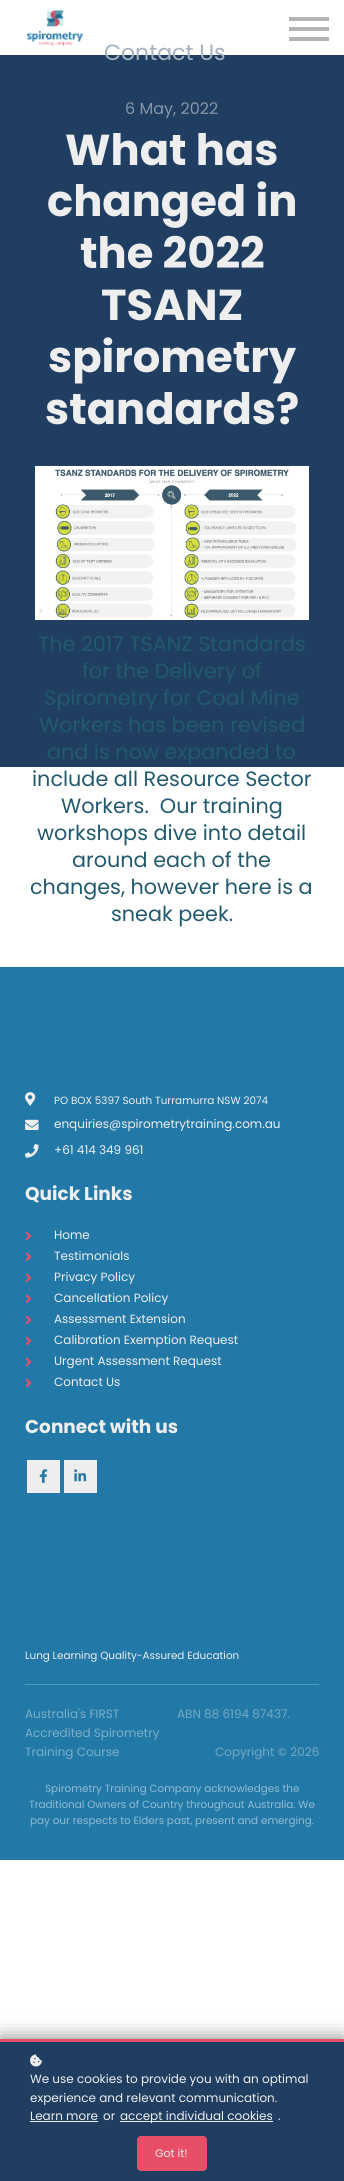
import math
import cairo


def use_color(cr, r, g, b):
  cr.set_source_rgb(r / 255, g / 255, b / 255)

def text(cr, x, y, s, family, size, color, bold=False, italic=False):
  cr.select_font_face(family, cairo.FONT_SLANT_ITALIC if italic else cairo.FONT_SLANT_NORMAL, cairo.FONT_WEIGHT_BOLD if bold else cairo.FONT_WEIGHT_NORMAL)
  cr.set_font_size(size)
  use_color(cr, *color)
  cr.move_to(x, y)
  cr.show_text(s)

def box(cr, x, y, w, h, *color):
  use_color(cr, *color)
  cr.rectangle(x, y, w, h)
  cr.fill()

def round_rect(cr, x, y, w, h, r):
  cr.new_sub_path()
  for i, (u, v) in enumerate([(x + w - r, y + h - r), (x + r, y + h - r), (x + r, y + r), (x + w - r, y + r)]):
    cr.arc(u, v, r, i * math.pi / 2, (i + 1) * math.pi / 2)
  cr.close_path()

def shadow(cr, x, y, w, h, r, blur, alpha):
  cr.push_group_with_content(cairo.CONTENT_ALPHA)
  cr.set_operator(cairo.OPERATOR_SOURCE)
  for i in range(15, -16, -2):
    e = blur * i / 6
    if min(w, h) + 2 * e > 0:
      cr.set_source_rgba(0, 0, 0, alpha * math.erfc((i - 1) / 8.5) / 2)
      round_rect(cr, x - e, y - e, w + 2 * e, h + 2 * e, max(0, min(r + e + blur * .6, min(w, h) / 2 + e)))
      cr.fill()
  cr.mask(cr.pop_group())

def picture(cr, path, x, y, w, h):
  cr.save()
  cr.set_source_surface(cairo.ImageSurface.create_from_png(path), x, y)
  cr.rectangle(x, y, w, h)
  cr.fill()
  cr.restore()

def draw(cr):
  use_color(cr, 255, 255, 255)
  cr.paint()
  picture(cr, "img_01.png", 26, 10, 58, 36)
  box(cr, 289, 37, 40, 4, 180, 180, 180)
  box(cr, 289, 17, 40, 4, 180, 180, 180)
  box(cr, 289, 27, 40, 4, 180, 180, 180)
  box(cr, 0, 55, 344, 712, 32, 62, 97)
  box(cr, 35, 466, 274, 154, 255, 255, 255)
  picture(cr, "img_02.png", 39, 468, 258, 151)
  box(cr, 0, 967, 344, 893, 34, 121, 167)
  picture(cr, "img_03.png", 25, 1092, 11, 14)
  picture(cr, "img_04.png", 25, 1119, 14, 11)
  picture(cr, "img_05.png", 25, 1144, 14, 14)
  picture(cr, "img_06.png", 25, 1231, 7, 10)
  picture(cr, "img_06.png", 25, 1252, 7, 10)
  picture(cr, "img_06.png", 25, 1273, 7, 10)
  picture(cr, "img_06.png", 25, 1294, 7, 10)
  picture(cr, "img_06.png", 25, 1315, 7, 10)
  picture(cr, "img_06.png", 25, 1336, 7, 10)
  picture(cr, "img_06.png", 25, 1357, 7, 10)
  picture(cr, "img_06.png", 25, 1378, 7, 10)
  box(cr, 27, 1460, 33, 33, 238, 238, 238)
  picture(cr, "img_07.png", 39, 1469, 9, 14)
  box(cr, 64, 1460, 33, 33, 238, 238, 238)
  picture(cr, "img_08.png", 74, 1469, 13, 13)
  box(cr, 25, 1684, 294, 1, 78, 148, 185)
  use_color(cr, 0, 0, 0)
  shadow(cr, 0, 2039, 344, 142, 0, 10, 0.5)
  box(cr, 0, 2042, 344, 139, 32, 62, 97)
  box(cr, 0, 2039, 344, 3, 233, 78, 105)
  picture(cr, "img_09.png", 30, 2054, 12, 13)
  box(cr, 30, 2121, 68, 1, 238, 238, 238)
  box(cr, 120, 2121, 153, 1, 238, 238, 238)
  use_color(cr, 233, 78, 105)
  round_rect(cr, 137, 2136, 70, 35, 4)
  cr.fill()
  text(cr, 104, 60, "Contact Us", "Poppins", 22, (166, 178, 192))
  text(cr, 125, 114, "6 May, 2022", "Poppins", 16, (135, 150, 168))
  text(cr, 65, 165, "What has", "Poppins", 43.25, (238, 238, 238), bold=True)
  text(cr, 47, 216, "changed in", "Poppins", 43.25, (238, 238, 238), bold=True)
  text(cr, 80, 268, "the 2022", "Poppins", 43.25, (238, 238, 238), bold=True)
  text(cr, 101, 320, "TSANZ", "Poppins", 43.25, (238, 238, 238), bold=True)
  text(cr, 48, 372, "spirometry", "Poppins", 43.25, (238, 238, 238), bold=True)
  text(cr, 45, 424, "standards?", "Poppins", 43.25, (238, 238, 238), bold=True)
  text(cr, 38, 651, "The 2017 TSANZ Standards", "Poppins", 20.75, (34, 90, 109))
  text(cr, 82, 678, "for the Delivery of", "Poppins", 20.75, (34, 90, 109))
  text(cr, 44, 705, "Spirometry for Coal Mine", "Poppins", 20.75, (34, 90, 109))
  text(cr, 39, 732, "Workers has been revised", "Poppins", 20.75, (34, 90, 109))
  text(cr, 47, 759, "and is now expanded to", "Poppins", 20.75, (34, 90, 109))
  text(cr, 32, 786, "include all Resource Sector", "Poppins", 20.75, (34, 90, 109))
  text(cr, 61, 813, "Workers.  Our training", "Poppins", 20.75, (34, 90, 109))
  text(cr, 37, 840, "workshops dive into detail", "Poppins", 20.75, (34, 90, 109))
  text(cr, 72, 867, "around each of the", "Poppins", 20.75, (34, 90, 109))
  text(cr, 30, 894, "changes, however here is a", "Poppins", 20.75, (34, 90, 109))
  text(cr, 111, 921, "sneak peek.", "Poppins", 20.75, (34, 90, 109))
  text(cr, 54, 1104, "PO BOX 5397 South Turramurra NSW 2074", "Poppins", 10.4, (238, 238, 238))
  text(cr, 54, 1128, "enquiries@spirometrytraining.com.au", "Poppins", 12, (238, 238, 238))
  text(cr, 54, 1154, "+61 414 349 961", "Poppins", 12, (238, 238, 238))
  text(cr, 25, 1200, "Quick Links", "Poppins", 18.5, (238, 238, 238), bold=True)
  text(cr, 54, 1239, "Home", "Poppins", 12, (238, 238, 238))
  text(cr, 54, 1260, "Testimonials", "Poppins", 12, (238, 238, 238))
  text(cr, 54, 1281, "Privacy Policy", "Poppins", 12, (238, 238, 238))
  text(cr, 54, 1302, "Cancellation Policy", "Poppins", 12, (238, 238, 238))
  text(cr, 54, 1323, "Assessment Extension", "Poppins", 12, (238, 238, 238))
  text(cr, 54, 1344, "Calibration Exemption Request", "Poppins", 12, (238, 238, 238))
  text(cr, 54, 1365, "Urgent Assessment Request", "Poppins", 12, (238, 238, 238))
  text(cr, 54, 1386, "Contact Us", "Poppins", 12, (238, 238, 238))
  text(cr, 25, 1433, "Connect with us", "Poppins", 18.5, (238, 238, 238), bold=True)
  text(cr, 25, 1659, "Lung Learning Quality-Assured Education", "Poppins", 10.4, (238, 238, 238))
  text(cr, 25, 1718, "Australia's FIRST", "Poppins", 12, (122, 175, 202))
  text(cr, 25, 1737, "Accredited Spirometry", "Poppins", 12, (122, 175, 202))
  text(cr, 25, 1756, "Training Course", "Poppins", 12, (122, 175, 202))
  text(cr, 177, 1718, "ABN 88 6194 87437.", "Poppins", 12, (116, 168, 195))
  text(cr, 215, 1756, "Copyright © 2026", "Poppins", 12, (116, 168, 195))
  text(cr, 45, 1792, "Spirometry Training Company acknowledges the", "Poppins", 10.4, (145, 188, 211))
  text(cr, 29, 1808, "Traditional Owners of Country throughout Australia. We", "Poppins", 10.4, (145, 188, 211))
  text(cr, 30, 1824, "pay our respects to Elders past, present and emerging.", "Poppins", 10.4, (145, 188, 211))
  text(cr, 30, 2083, "We use cookies to provide you with an optimal", "Poppins", 12, (238, 238, 238))
  text(cr, 30, 2102, "experience and relevant communication.", "Poppins", 12, (238, 238, 238))
  text(cr, 30, 2120, "Learn more", "Poppins", 12, (238, 238, 238))
  text(cr, 103, 2120, "or", "Poppins", 12, (238, 238, 238))
  text(cr, 120, 2120, "accept individual cookies", "Poppins", 12, (238, 238, 238))
  text(cr, 278, 2120, ".", "Poppins", 12, (238, 238, 238))
  text(cr, 155, 2157, "Got it!", "Poppins", 11, (238, 238, 238))


surface = cairo.ImageSurface(cairo.FORMAT_RGB24, 344, 2181)
cr = cairo.Context(surface)
options = cairo.FontOptions()
options.set_hint_metrics(cairo.HINT_METRICS_OFF)
options.set_hint_style(cairo.HINT_STYLE_NONE)
cr.set_font_options(options)
cr.set_miter_limit(4)
draw(cr)
surface.write_to_png("out.png")
